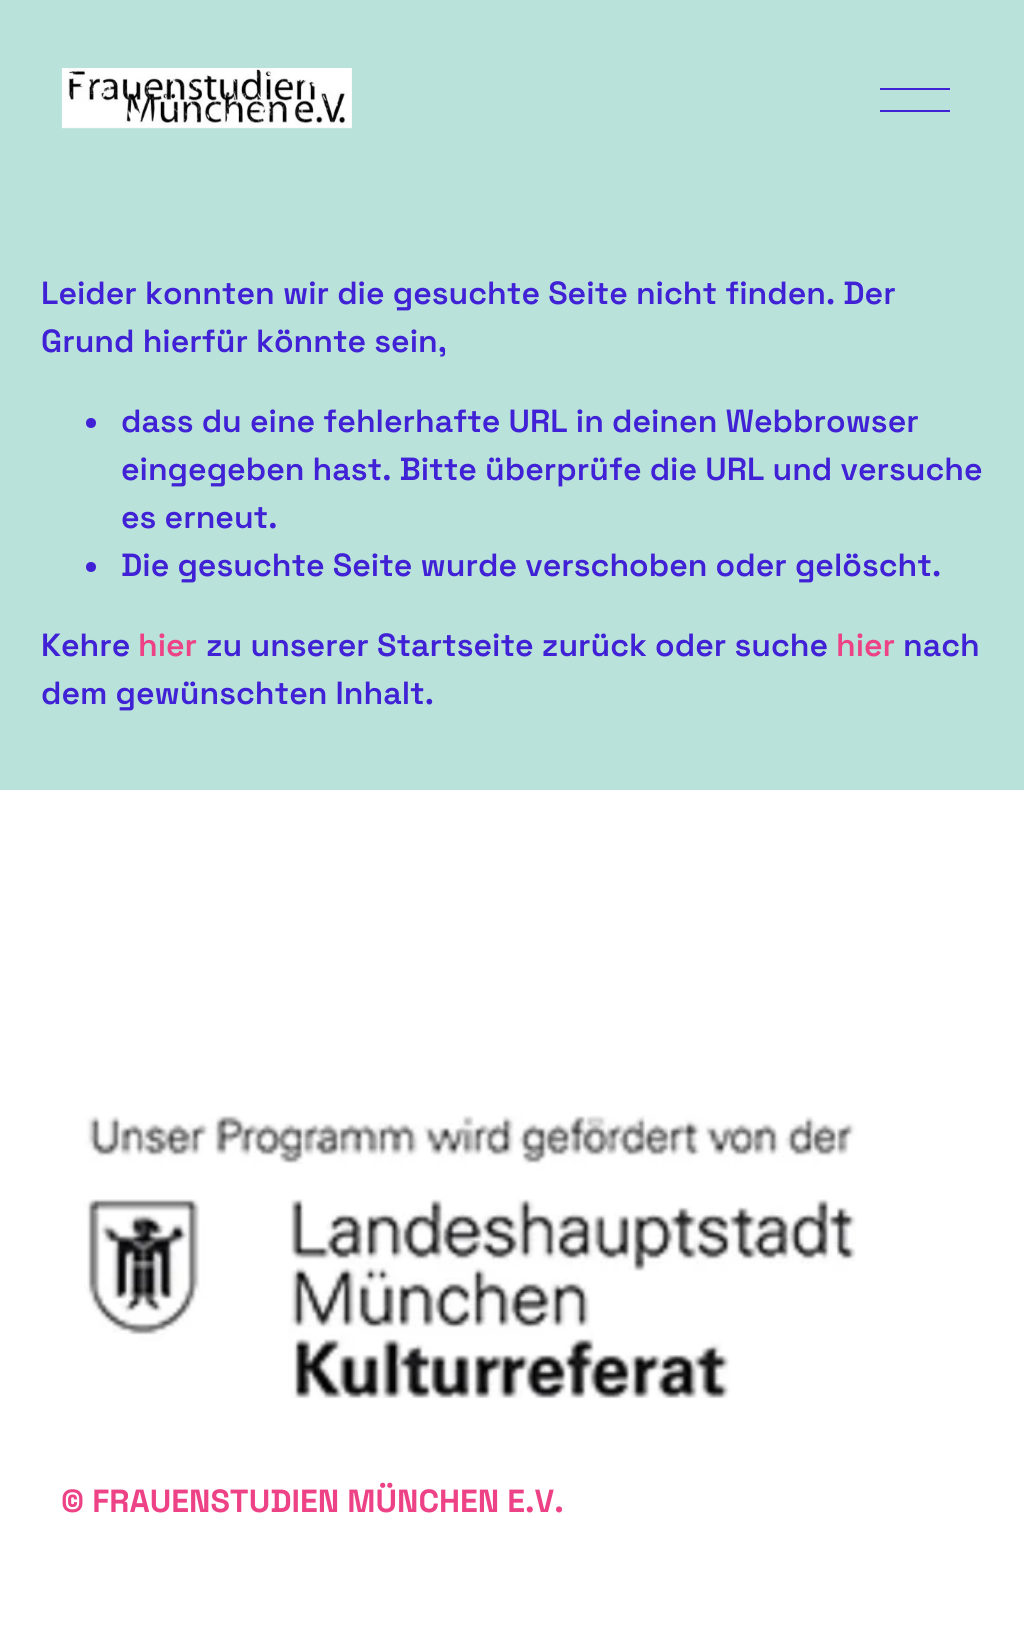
import math
import cairo


def use_color(cr, r, g, b):
  cr.set_source_rgb(r / 255, g / 255, b / 255)

def text(cr, x, y, s, family, size, color, bold=False, italic=False):
  cr.select_font_face(family, cairo.FONT_SLANT_ITALIC if italic else cairo.FONT_SLANT_NORMAL, cairo.FONT_WEIGHT_BOLD if bold else cairo.FONT_WEIGHT_NORMAL)
  cr.set_font_size(size)
  use_color(cr, *color)
  cr.move_to(x, y)
  cr.show_text(s)

def box(cr, x, y, w, h, *color):
  use_color(cr, *color)
  cr.rectangle(x, y, w, h)
  cr.fill()

def picture(cr, path, x, y, w, h):
  cr.save()
  cr.set_source_surface(cairo.ImageSurface.create_from_png(path), x, y)
  cr.rectangle(x, y, w, h)
  cr.fill()
  cr.restore()

def draw(cr):
  use_color(cr, 184, 226, 218)
  cr.paint()
  picture(cr, "img_01.png", 61, 68, 291, 61)
  box(cr, 880, 88, 70, 2, 64, 33, 213)
  box(cr, 880, 110, 70, 2, 64, 33, 213)
  cr.arc(91, 423, 5, 0, 2 * math.pi)
  cr.fill()
  cr.arc(91, 567, 5, 0, 2 * math.pi)
  cr.fill()
  box(cr, 0, 790, 1024, 842, 255, 255, 255)
  picture(cr, "img_02.png", 84, 1115, 773, 284)
  text(cr, 41, 304, "Leider konnten wir die gesuchte Seite nicht finden. Der", "Space Grotesk SemiBold", 32, (64, 33, 213))
  text(cr, 41, 352, "Grund hierfür könnte sein,", "Space Grotesk SemiBold", 32, (64, 33, 213))
  text(cr, 121, 432, "dass du eine fehlerhafte URL in deinen Webbrowser", "Space Grotesk SemiBold", 32, (64, 33, 213))
  text(cr, 121, 480, "eingegeben hast. Bitte überprüfe die URL und versuche", "Space Grotesk SemiBold", 32, (64, 33, 213))
  text(cr, 121, 528, "es erneut.", "Space Grotesk SemiBold", 32, (64, 33, 213))
  text(cr, 121, 576, "Die gesuchte Seite wurde verschoben oder gelöscht.", "Space Grotesk SemiBold", 32, (64, 33, 213))
  text(cr, 41, 656, "Kehre", "Space Grotesk SemiBold", 32, (64, 33, 213))
  text(cr, 138, 656, "hier", "Space Grotesk SemiBold", 32, (238, 66, 134))
  text(cr, 206, 656, "zu unserer Startseite zurück oder suche", "Space Grotesk SemiBold", 32, (64, 33, 213))
  text(cr, 836, 656, "hier", "Space Grotesk SemiBold", 32, (238, 66, 134))
  text(cr, 903, 656, "nach", "Space Grotesk SemiBold", 32, (64, 33, 213))
  text(cr, 41, 704, "dem gewünschten Inhalt.", "Space Grotesk SemiBold", 32, (64, 33, 213))
  text(cr, 61, 1512, "© FRAUENSTUDIEN MÜNCHEN E.V.", "Space Grotesk", 32, (238, 66, 134), bold=True)


surface = cairo.ImageSurface(cairo.FORMAT_RGB24, 1024, 1632)
cr = cairo.Context(surface)
options = cairo.FontOptions()
options.set_hint_metrics(cairo.HINT_METRICS_OFF)
options.set_hint_style(cairo.HINT_STYLE_NONE)
cr.set_font_options(options)
cr.set_miter_limit(4)
draw(cr)
surface.write_to_png("out.png")
